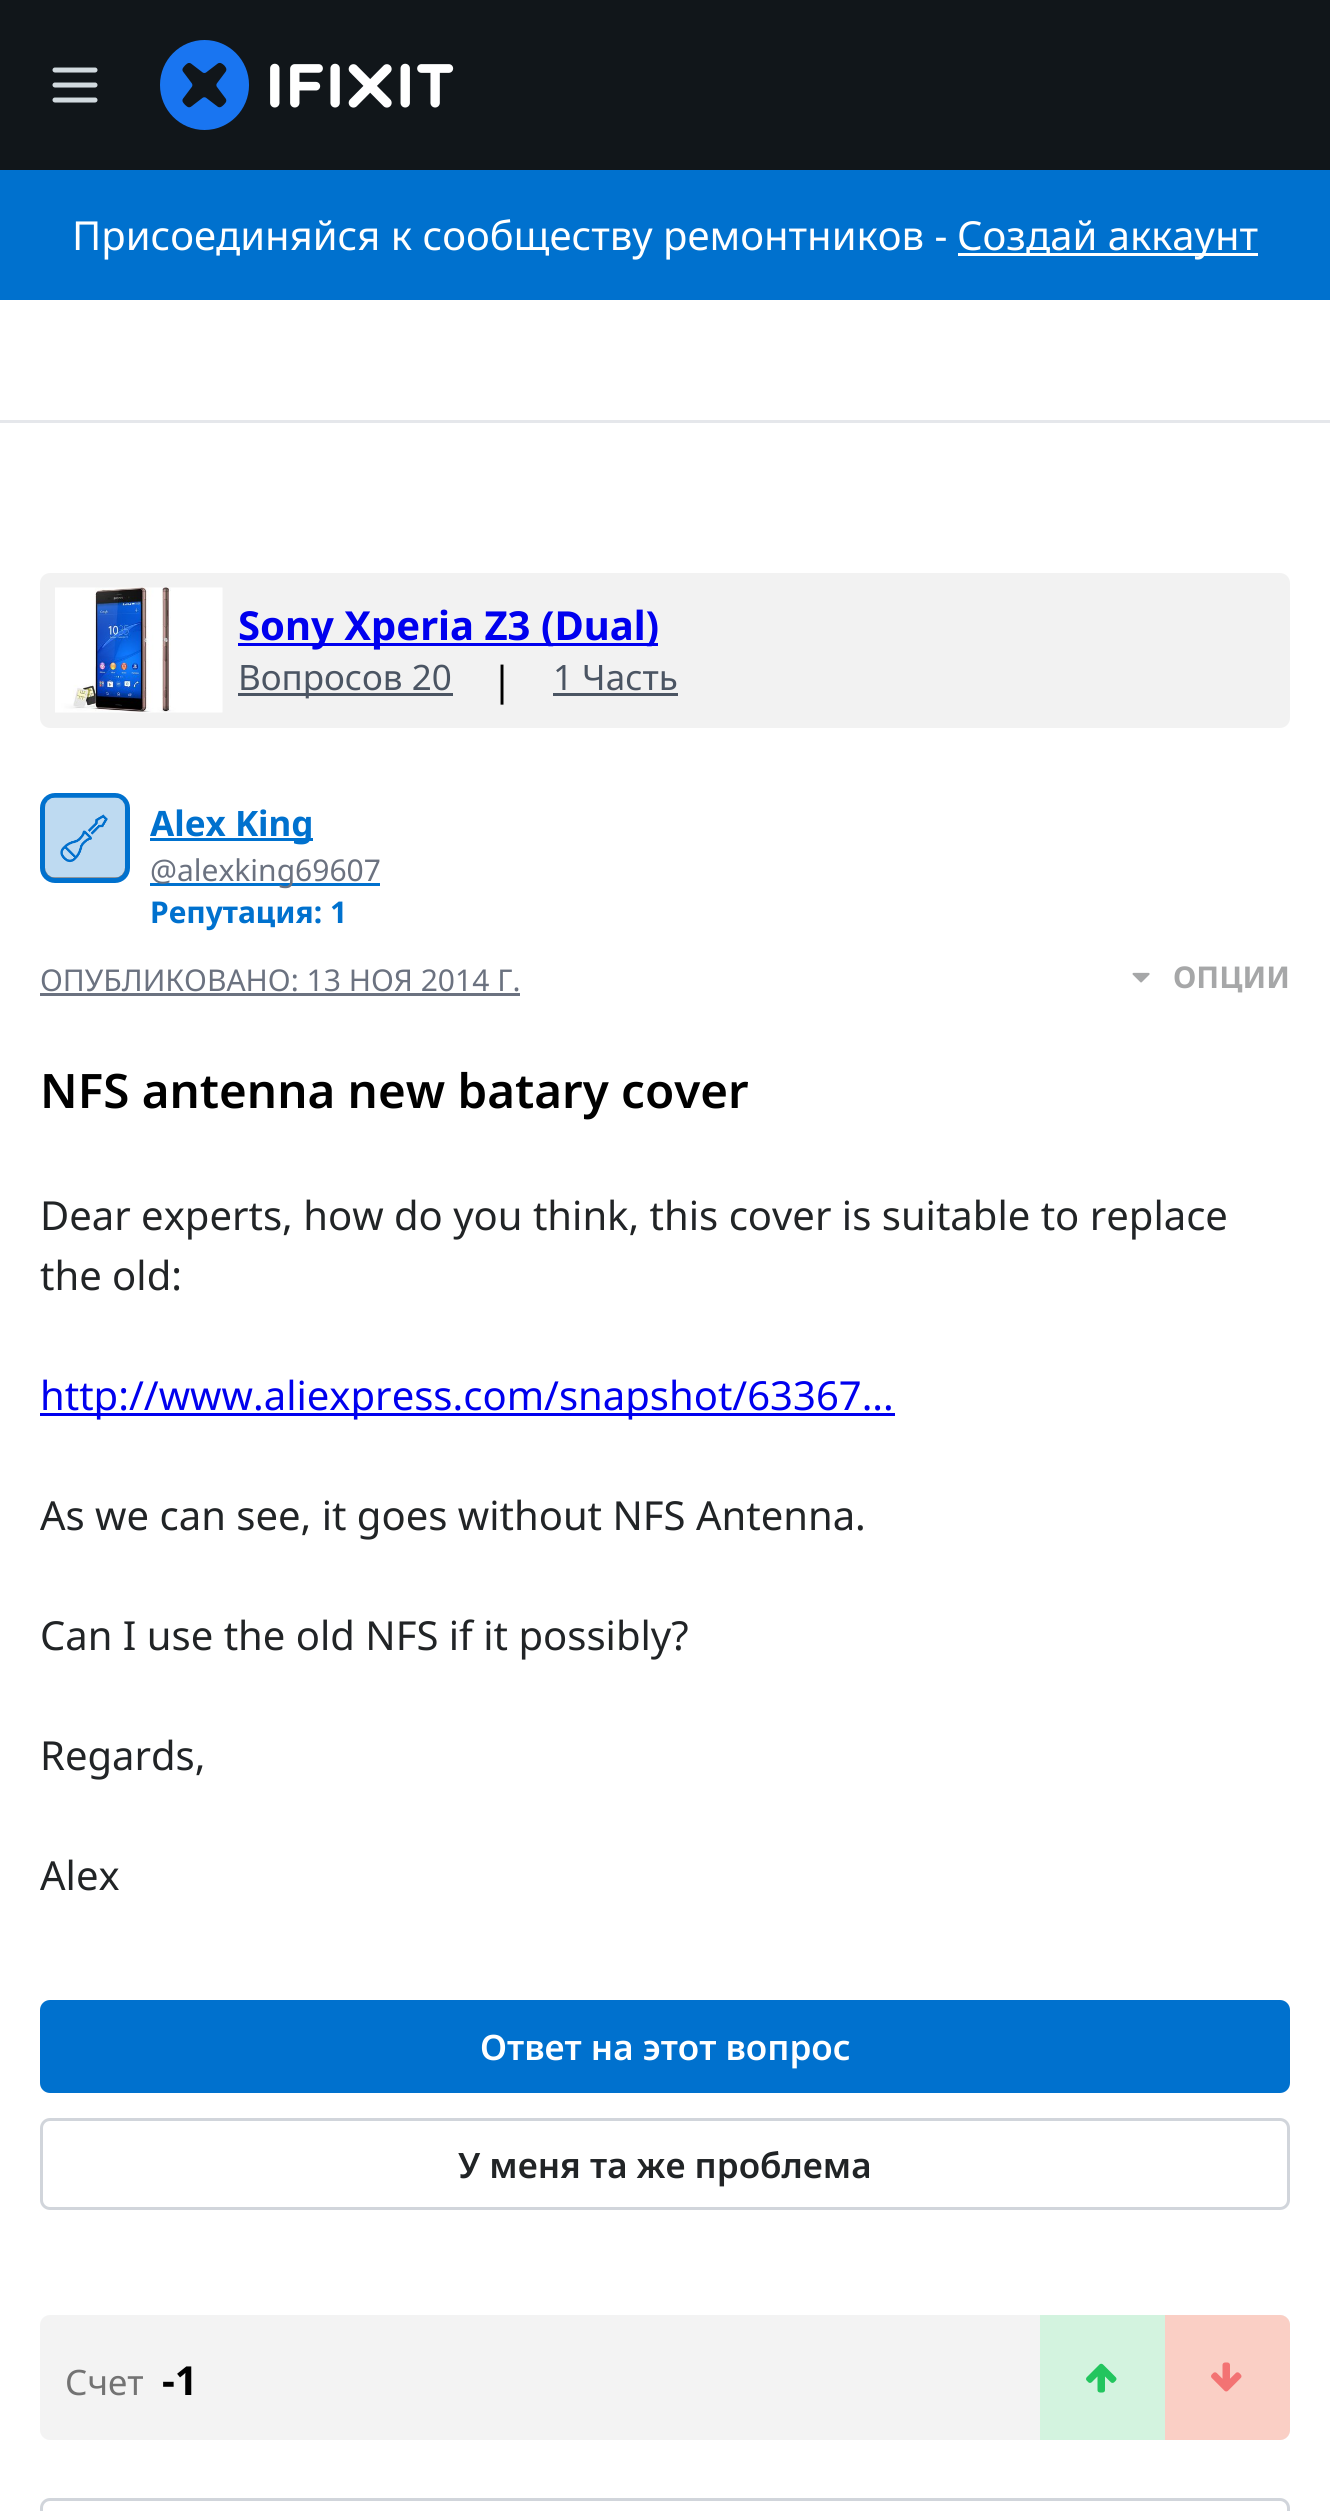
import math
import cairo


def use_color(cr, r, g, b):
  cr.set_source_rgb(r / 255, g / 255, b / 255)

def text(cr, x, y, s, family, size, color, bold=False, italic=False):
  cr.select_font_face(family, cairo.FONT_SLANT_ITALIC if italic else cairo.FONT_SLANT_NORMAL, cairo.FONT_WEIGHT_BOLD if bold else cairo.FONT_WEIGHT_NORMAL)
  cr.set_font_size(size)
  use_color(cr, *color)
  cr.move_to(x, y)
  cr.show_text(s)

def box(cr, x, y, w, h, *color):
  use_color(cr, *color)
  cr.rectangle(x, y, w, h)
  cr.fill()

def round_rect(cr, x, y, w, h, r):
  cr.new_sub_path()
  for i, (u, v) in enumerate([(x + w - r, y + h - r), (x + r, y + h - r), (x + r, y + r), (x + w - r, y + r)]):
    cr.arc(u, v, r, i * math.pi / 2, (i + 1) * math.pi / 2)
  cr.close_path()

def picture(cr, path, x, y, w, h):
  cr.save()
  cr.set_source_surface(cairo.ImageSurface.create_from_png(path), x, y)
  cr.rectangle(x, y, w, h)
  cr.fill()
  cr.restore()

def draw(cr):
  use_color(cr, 255, 255, 255)
  cr.paint()
  box(cr, 0, 0, 1330, 170, 17, 22, 26)
  cr.new_path()
  cr.move_to(55, 85)
  cr.line_to(95, 85)
  cr.move_to(55, 70)
  cr.line_to(95, 70)
  cr.move_to(55, 100)
  cr.line_to(95, 100)
  use_color(cr, 210, 218, 223)
  cr.set_line_width(5)
  cr.set_line_cap(cairo.LINE_CAP_ROUND)
  cr.set_line_join(cairo.LINE_JOIN_ROUND)
  cr.stroke()
  picture(cr, "img_01.png", 160, 40, 294, 90)
  box(cr, 0, 170, 1330, 130, 0, 113, 206)
  box(cr, 958, 253, 300, 3, 255, 255, 255)
  box(cr, 0, 420, 1330, 3, 229, 231, 235)
  use_color(cr, 242, 242, 242)
  round_rect(cr, 40, 573, 1250, 155, 10)
  cr.fill()
  picture(cr, "img_02.png", 55, 587, 168, 126)
  box(cr, 238, 643, 420, 3, 0, 0, 238)
  box(cr, 238, 693, 215, 3, 75, 85, 99)
  box(cr, 553, 693, 125, 3, 75, 85, 99)
  use_color(cr, 128, 128, 128)
  round_rect(cr, 42.5, 795.5, 85, 85, 12.5)
  cr.fill_preserve()
  use_color(cr, 0, 113, 206)
  cr.set_line_cap(cairo.LINE_CAP_BUTT)
  cr.set_line_join(cairo.LINE_JOIN_MITER)
  cr.stroke()
  picture(cr, "img_03.png", 45, 797, 80, 81)
  box(cr, 150, 838, 163, 3, 0, 113, 206)
  box(cr, 150, 883, 230, 3, 0, 113, 206)
  box(cr, 40, 993, 480, 3, 107, 114, 128)
  picture(cr, "img_04.png", 1132, 972, 18, 11)
  box(cr, 40, 1413, 855, 3, 0, 0, 238)
  use_color(cr, 0, 113, 206)
  round_rect(cr, 41.5, 2001.5, 1247, 90, 8.5)
  cr.fill_preserve()
  cr.set_line_width(3)
  cr.stroke()
  round_rect(cr, 41.5, 2119.5, 1247, 89, 8.5)
  use_color(cr, 209, 213, 219)
  cr.stroke()
  use_color(cr, 243, 243, 243)
  round_rect(cr, 40, 2315, 1250, 125, 10)
  cr.fill()
  box(cr, 1040, 2315, 125, 125, 211, 243, 223)
  picture(cr, "img_05.png", 1086, 2363, 31, 30)
  use_color(cr, 250, 207, 197)
  cr.new_path()
  cr.move_to(1165, 2315)
  cr.line_to(1280, 2315)
  cr.curve_to(1285.5, 2315, 1290, 2319.5, 1290, 2325)
  cr.line_to(1290, 2430)
  cr.curve_to(1290, 2435.5, 1285.5, 2440, 1280, 2440)
  cr.line_to(1165, 2440)
  cr.close_path()
  cr.fill()
  picture(cr, "img_06.png", 1211, 2362, 31, 30)
  round_rect(cr, 41.5, 2499.5, 1247, 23, 8.5)
  use_color(cr, 209, 213, 219)
  cr.stroke()
  text(cr, 72, 250, "Присоединяйся к сообществу ремонтников -", "Noto Sans", 40, (255, 255, 255))
  text(cr, 957, 250, "Создай аккаунт", "Noto Sans", 40, (255, 255, 255))
  text(cr, 238, 640, "Sony Xperia Z3 (Dual)", "Noto Sans", 40, (0, 0, 238), bold=True)
  text(cr, 238, 690, "Вопросов 20", "Noto Sans", 35, (75, 85, 99))
  text(cr, 491, 695, "|", "Noto Sans", 40, (0, 0, 0))
  text(cr, 553, 690, "1 Часть", "Noto Sans", 35, (75, 85, 99))
  text(cr, 150, 836, "Alex King", "Noto Sans", 35, (0, 113, 206), bold=True)
  text(cr, 150, 881, "@alexking69607", "Noto Sans", 30, (107, 114, 128))
  text(cr, 150, 923, "Репутация: 1", "Noto Sans", 30, (0, 113, 206), bold=True)
  text(cr, 40, 991, "ОПУБЛИКОВАНО: 13 НОЯ 2014 Г.", "Noto Sans", 30, (107, 114, 128))
  text(cr, 1173, 988, "ОПЦИИ", "Noto Sans", 30, (166, 167, 168), bold=True)
  text(cr, 40, 1108, "NFS antenna new batary cover", "Noto Sans SemiBold", 47.5, (0, 0, 0))
  text(cr, 40, 1230, "Dear experts, how do you think, this cover is suitable to replace", "Noto Sans", 40, (33, 36, 38))
  text(cr, 40, 1290, "the old:", "Noto Sans", 40, (33, 36, 38))
  text(cr, 40, 1410, "http://www.aliexpress.com/snapshot/63367...", "Noto Sans", 40, (0, 0, 238))
  text(cr, 40, 1530, "As we can see, it goes without NFS Antenna.", "Noto Sans", 40, (33, 36, 38))
  text(cr, 40, 1650, "Can I use the old NFS if it possibly?", "Noto Sans", 40, (33, 36, 38))
  text(cr, 40, 1770, "Regards,", "Noto Sans", 40, (33, 36, 38))
  text(cr, 40, 1890, "Alex", "Noto Sans", 40, (33, 36, 38))
  text(cr, 480, 2060, "Ответ на этот вопрос", "Noto Sans SemiBold", 35, (255, 255, 255))
  text(cr, 458, 2178, "У меня та же проблема", "Noto Sans SemiBold", 35, (33, 36, 38))
  text(cr, 65, 2395, "Счет", "Noto Sans", 35, (115, 115, 115))
  text(cr, 162, 2395, "-1", "Noto Sans", 40, (0, 0, 0), bold=True)


surface = cairo.ImageSurface(cairo.FORMAT_RGB24, 1330, 2511)
cr = cairo.Context(surface)
options = cairo.FontOptions()
options.set_hint_metrics(cairo.HINT_METRICS_OFF)
options.set_hint_style(cairo.HINT_STYLE_NONE)
cr.set_font_options(options)
cr.set_miter_limit(4)
draw(cr)
surface.write_to_png("out.png")
